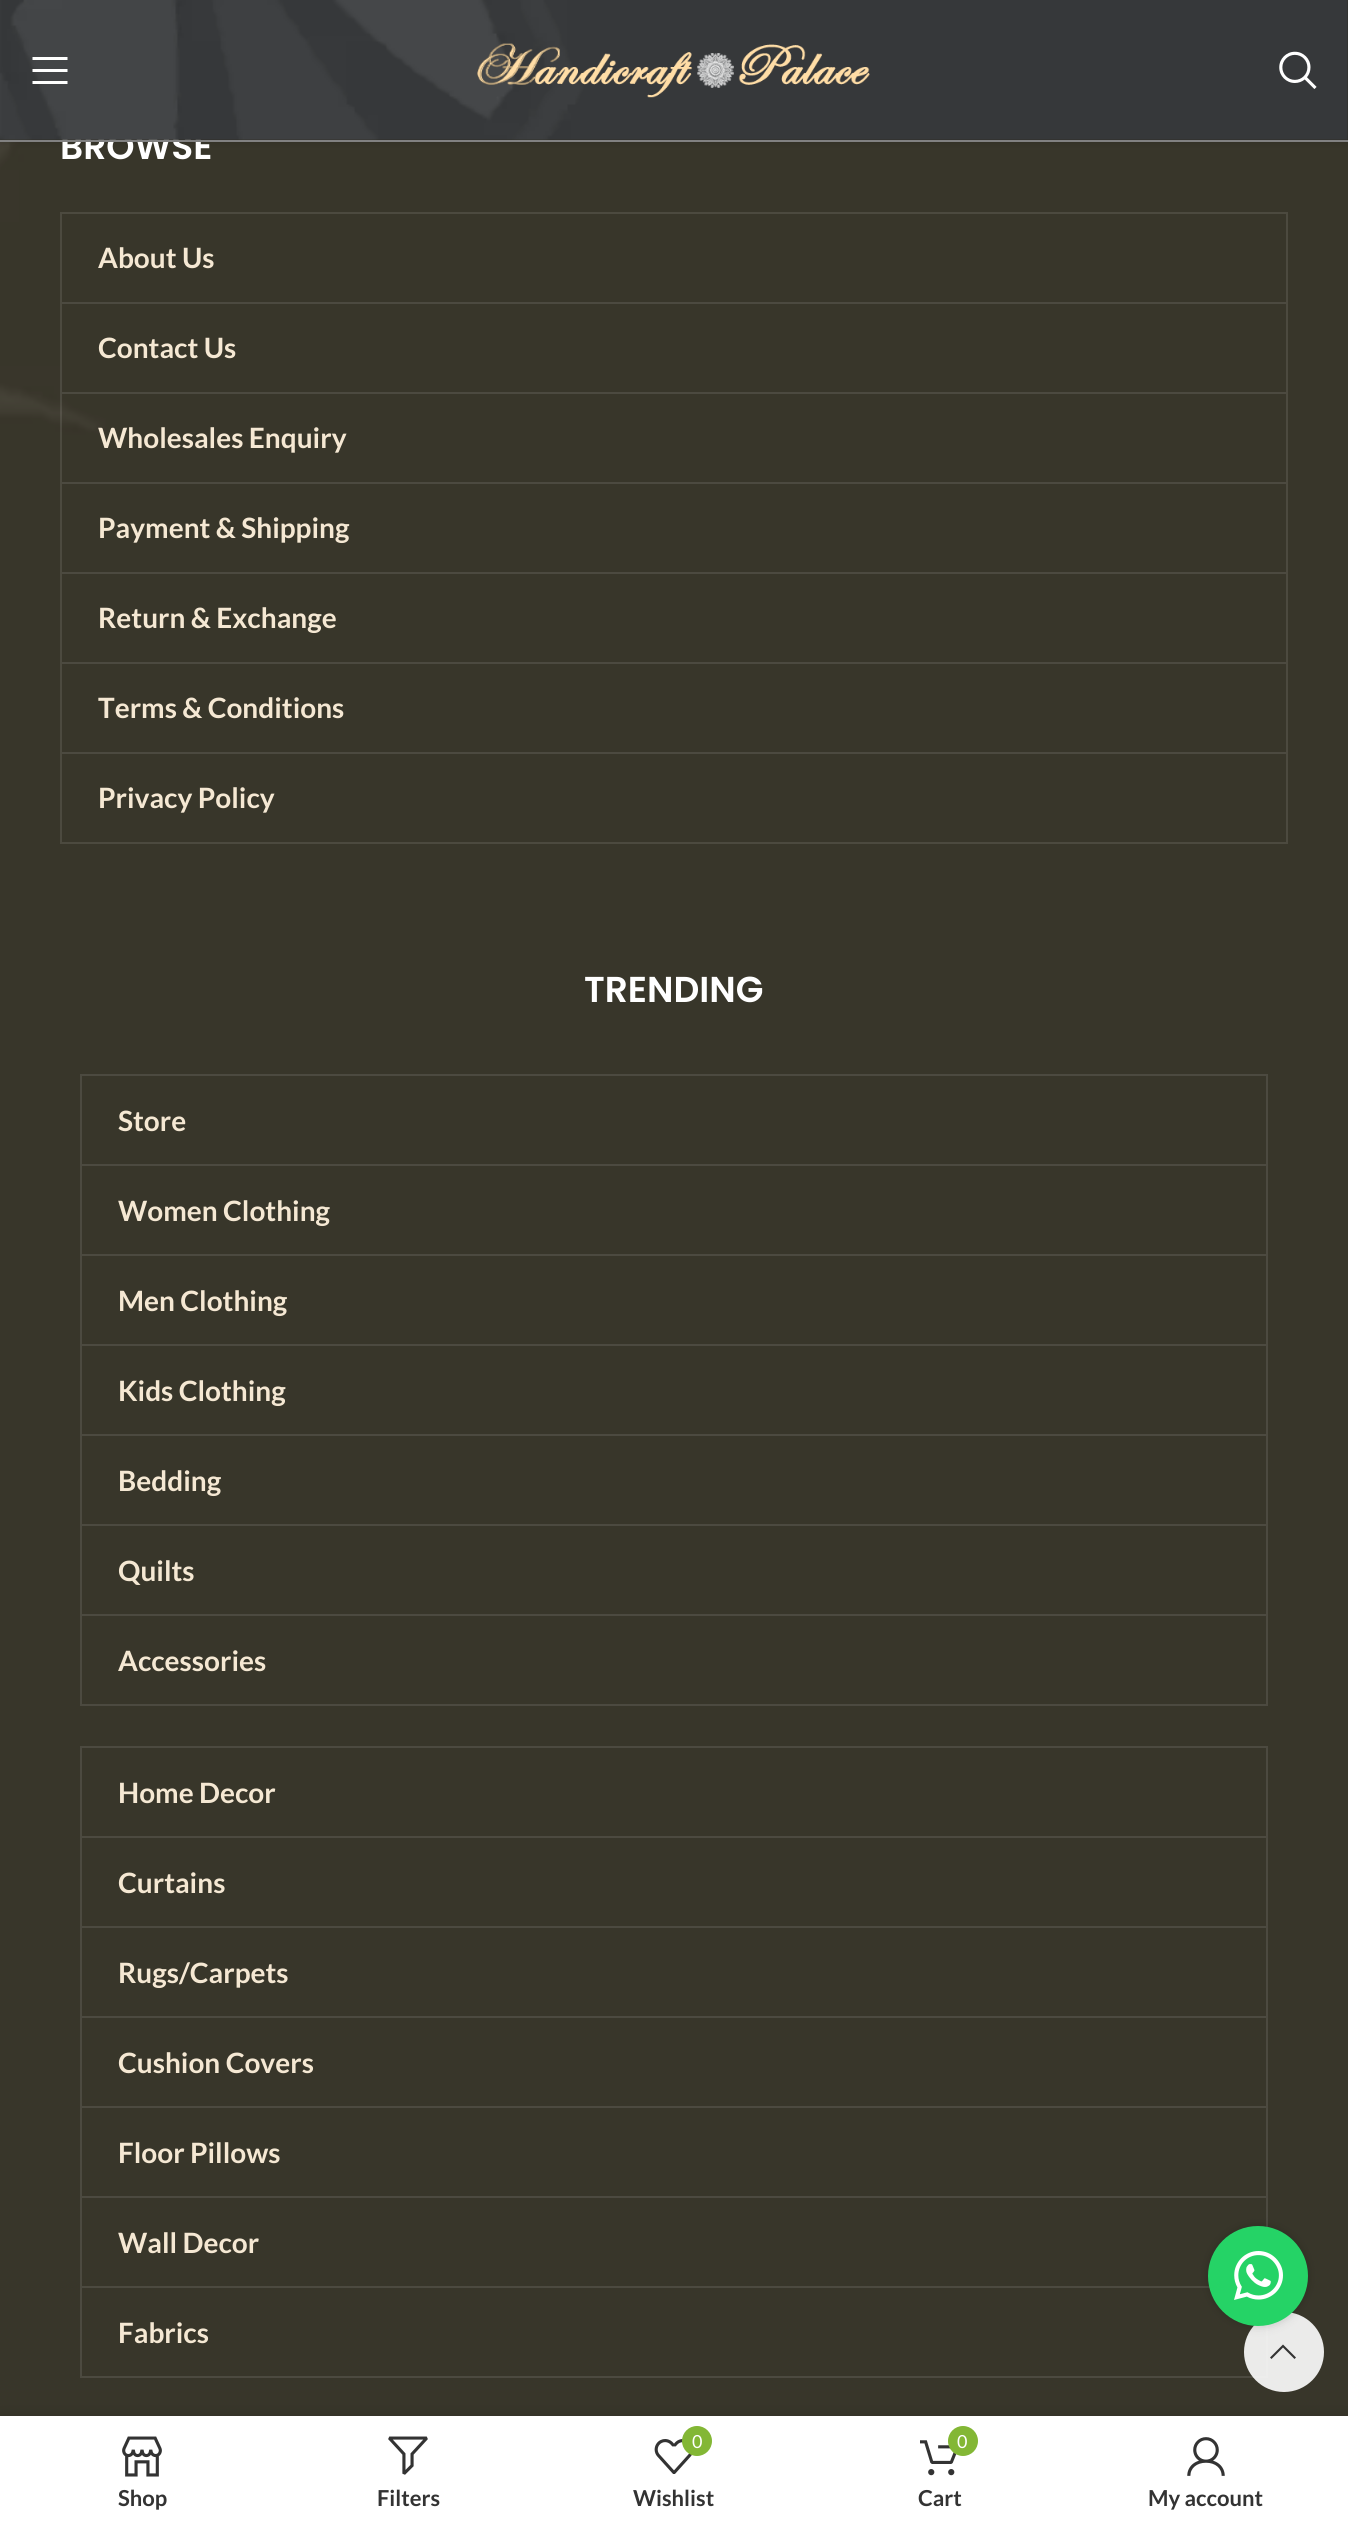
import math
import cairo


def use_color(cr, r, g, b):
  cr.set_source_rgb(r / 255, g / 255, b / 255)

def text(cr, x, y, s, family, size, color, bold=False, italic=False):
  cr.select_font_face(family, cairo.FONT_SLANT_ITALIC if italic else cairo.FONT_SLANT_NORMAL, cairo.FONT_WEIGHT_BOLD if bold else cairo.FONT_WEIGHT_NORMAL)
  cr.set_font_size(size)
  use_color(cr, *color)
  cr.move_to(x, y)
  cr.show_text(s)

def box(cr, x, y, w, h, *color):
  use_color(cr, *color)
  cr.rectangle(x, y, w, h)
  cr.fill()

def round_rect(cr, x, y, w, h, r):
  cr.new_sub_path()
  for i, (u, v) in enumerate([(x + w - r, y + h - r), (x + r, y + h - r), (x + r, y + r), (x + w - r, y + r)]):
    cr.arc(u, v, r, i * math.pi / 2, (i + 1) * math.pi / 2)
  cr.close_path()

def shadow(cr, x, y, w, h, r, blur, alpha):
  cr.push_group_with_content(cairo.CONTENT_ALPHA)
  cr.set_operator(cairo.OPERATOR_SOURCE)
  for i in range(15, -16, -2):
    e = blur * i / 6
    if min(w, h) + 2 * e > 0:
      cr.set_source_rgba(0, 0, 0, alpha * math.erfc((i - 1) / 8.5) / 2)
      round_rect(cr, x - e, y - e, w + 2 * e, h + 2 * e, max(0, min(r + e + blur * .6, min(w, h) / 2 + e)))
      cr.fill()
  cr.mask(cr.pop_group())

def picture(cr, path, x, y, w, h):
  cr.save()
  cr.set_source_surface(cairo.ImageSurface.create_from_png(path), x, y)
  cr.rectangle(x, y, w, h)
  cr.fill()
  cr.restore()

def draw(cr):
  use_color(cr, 255, 255, 255)
  cr.paint()
  picture(cr, "img_04.png", 0, 0, 1348, 2416)
  use_color(cr, 0, 0, 0)
  shadow(cr, 0, 2, 1348, 142, 0, 3, 0.1)
  cr.rectangle(61, 213, 1226, 630)
  cr.set_source_rgba(1, 1, 1, 0.1)
  cr.stroke()
  box(cr, 62, 302, 1224, 2, 76, 74, 64)
  box(cr, 62, 392, 1224, 2, 76, 74, 64)
  box(cr, 62, 482, 1224, 2, 76, 74, 64)
  box(cr, 62, 572, 1224, 2, 76, 74, 64)
  box(cr, 62, 662, 1224, 2, 76, 74, 64)
  box(cr, 62, 752, 1224, 2, 76, 74, 64)
  cr.rectangle(81, 1075, 1186, 630)
  cr.stroke()
  box(cr, 82, 1164, 1184, 2, 76, 74, 64)
  box(cr, 82, 1254, 1184, 2, 76, 74, 64)
  box(cr, 82, 1344, 1184, 2, 76, 74, 64)
  box(cr, 82, 1434, 1184, 2, 76, 74, 64)
  box(cr, 82, 1524, 1184, 2, 76, 74, 64)
  box(cr, 82, 1614, 1184, 2, 76, 74, 64)
  cr.rectangle(81, 1747, 1186, 630)
  cr.stroke()
  box(cr, 82, 1836, 1184, 2, 76, 74, 64)
  box(cr, 82, 1926, 1184, 2, 76, 74, 64)
  box(cr, 82, 2016, 1184, 2, 76, 74, 64)
  box(cr, 82, 2106, 1184, 2, 76, 74, 64)
  box(cr, 82, 2196, 1184, 2, 76, 74, 64)
  box(cr, 82, 2286, 1128, 2, 76, 74, 64)
  cr.set_source_rgba(1, 1, 1, 0.9)
  cr.arc(1284, 2352, 40, 0, 2 * math.pi)
  cr.fill()
  use_color(cr, 0, 0, 0)
  shadow(cr, 1208, 2226, 100, 100, 50, 5, 0.17)
  use_color(cr, 37, 211, 102)
  cr.arc(1258, 2276, 50, 0, 2 * math.pi)
  cr.fill()
  picture(cr, "img_05.png", 1234, 2251, 49, 49)
  use_color(cr, 51, 51, 51)
  cr.new_path()
  cr.move_to(1294.5, 2359)
  cr.line_to(1296, 2357.5)
  cr.line_to(1283, 2344.5)
  cr.line_to(1270, 2357.5)
  cr.line_to(1271.5, 2359)
  cr.line_to(1283, 2347.5)
  cr.close_path()
  cr.fill()
  use_color(cr, 0, 0, 0)
  shadow(cr, 0, 2416, 1348, 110, 0, 9, 0.12)
  box(cr, 0, 2416, 1348, 109, 255, 255, 255)
  picture(cr, "img_06.png", 122, 2436, 40, 41)
  picture(cr, "img_07.png", 388, 2436, 40, 39)
  picture(cr, "img_08.png", 654, 2439, 38, 35)
  use_color(cr, 131, 183, 53)
  cr.arc(697, 2441, 15, 0, 2 * math.pi)
  cr.fill()
  picture(cr, "img_09.png", 920, 2440, 37, 36)
  cr.arc(963, 2441, 15, 0, 2 * math.pi)
  cr.fill()
  picture(cr, "img_10.png", 1187, 2437, 38, 39)
  text(cr, 60, 159, "BROWSE", "Poppins SemiBold", 36, (255, 255, 255))
  cr.set_source_rgba(0.137, 0.114, 0.027, 0.5)
  cr.rectangle(0, 0, 1348, 140)
  cr.fill()
  picture(cr, "img_01.png", 0, 0, 1348, 140)
  picture(cr, "img_03.png", 1279, 51, 38, 38)
  picture(cr, "img_02.png", 477, 43, 393, 55)
  use_color(cr, 255, 255, 255)
  cr.new_path()
  cr.move_to(32.5, 60)
  cr.line_to(67.5, 60)
  cr.line_to(67.5, 57)
  cr.line_to(32.5, 57)
  cr.close_path()
  cr.move_to(32.5, 72)
  cr.line_to(67.5, 72)
  cr.line_to(67.5, 69)
  cr.line_to(32.5, 69)
  cr.close_path()
  cr.move_to(32.5, 84)
  cr.line_to(67.5, 84)
  cr.line_to(67.5, 81)
  cr.line_to(32.5, 81)
  cr.close_path()
  cr.fill()
  box(cr, 0, 140, 1348, 2, 129, 129, 129)
  text(cr, 98, 268, "About Us", "Lato", 28, (245, 232, 211), bold=True)
  text(cr, 98, 358, "Contact Us", "Lato", 28, (245, 232, 211), bold=True)
  text(cr, 98, 448, "Wholesales Enquiry", "Lato", 28, (245, 232, 211), bold=True)
  text(cr, 98, 538, "Payment & Shipping", "Lato", 28, (245, 232, 211), bold=True)
  text(cr, 98, 628, "Return & Exchange", "Lato", 28, (245, 232, 211), bold=True)
  text(cr, 98, 718, "Terms & Conditions", "Lato", 28, (245, 232, 211), bold=True)
  text(cr, 98, 808, "Privacy Policy", "Lato", 28, (245, 232, 211), bold=True)
  text(cr, 584, 1002, "TRENDING", "Poppins SemiBold", 36, (255, 255, 255))
  text(cr, 118, 1131, "Store", "Lato", 28, (245, 232, 211), bold=True)
  text(cr, 118, 1221, "Women Clothing", "Lato", 28, (245, 232, 211), bold=True)
  text(cr, 118, 1311, "Men Clothing", "Lato", 28, (245, 232, 211), bold=True)
  text(cr, 118, 1401, "Kids Clothing", "Lato", 28, (245, 232, 211), bold=True)
  text(cr, 118, 1491, "Bedding", "Lato", 28, (245, 232, 211), bold=True)
  text(cr, 118, 1581, "Quilts", "Lato", 28, (245, 232, 211), bold=True)
  text(cr, 118, 1671, "Accessories", "Lato", 28, (245, 232, 211), bold=True)
  text(cr, 118, 1803, "Home Decor", "Lato", 28, (245, 232, 211), bold=True)
  text(cr, 118, 1893, "Curtains", "Lato", 28, (245, 232, 211), bold=True)
  text(cr, 118, 1983, "Rugs/Carpets", "Lato", 28, (245, 232, 211), bold=True)
  text(cr, 118, 2073, "Cushion Covers", "Lato", 28, (245, 232, 211), bold=True)
  text(cr, 118, 2163, "Floor Pillows", "Lato", 28, (245, 232, 211), bold=True)
  text(cr, 118, 2253, "Wall Decor", "Lato", 28, (245, 232, 211), bold=True)
  text(cr, 118, 2343, "Fabrics", "Lato", 28, (245, 232, 211), bold=True)
  text(cr, 118, 2506, "Shop", "Lato", 22, (51, 51, 51), bold=True)
  text(cr, 377, 2506, "Filters", "Lato", 22, (51, 51, 51), bold=True)
  text(cr, 692, 2448, "0", "Lato", 18, (255, 255, 255))
  text(cr, 633, 2506, "Wishlist", "Lato", 22, (51, 51, 51), bold=True)
  text(cr, 957, 2448, "0", "Lato", 18, (255, 255, 255))
  text(cr, 918, 2506, "Cart", "Lato", 22, (51, 51, 51), bold=True)
  text(cr, 1148, 2506, "My account", "Lato", 22, (51, 51, 51), bold=True)


surface = cairo.ImageSurface(cairo.FORMAT_RGB24, 1348, 2525)
cr = cairo.Context(surface)
options = cairo.FontOptions()
options.set_hint_metrics(cairo.HINT_METRICS_OFF)
options.set_hint_style(cairo.HINT_STYLE_NONE)
cr.set_font_options(options)
cr.set_miter_limit(4)
draw(cr)
surface.write_to_png("out.png")
